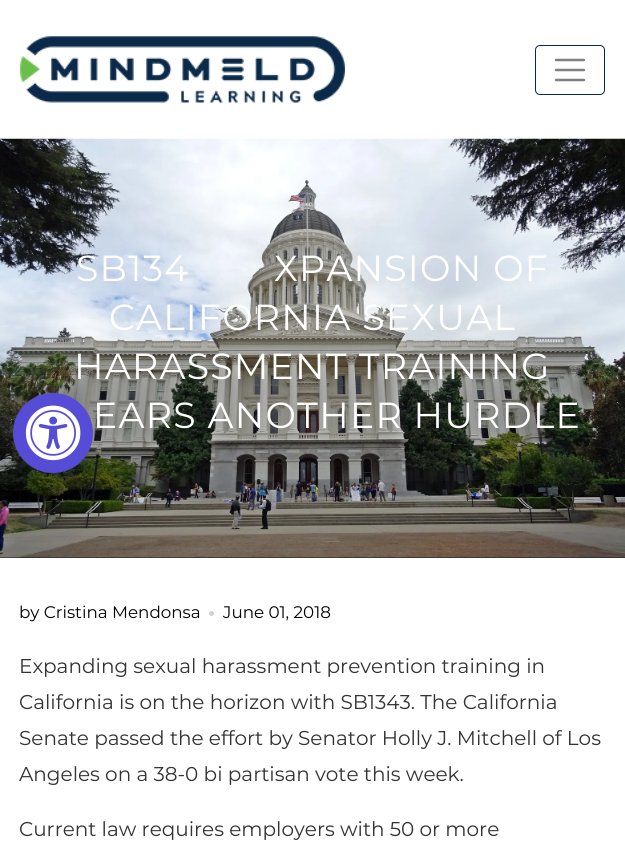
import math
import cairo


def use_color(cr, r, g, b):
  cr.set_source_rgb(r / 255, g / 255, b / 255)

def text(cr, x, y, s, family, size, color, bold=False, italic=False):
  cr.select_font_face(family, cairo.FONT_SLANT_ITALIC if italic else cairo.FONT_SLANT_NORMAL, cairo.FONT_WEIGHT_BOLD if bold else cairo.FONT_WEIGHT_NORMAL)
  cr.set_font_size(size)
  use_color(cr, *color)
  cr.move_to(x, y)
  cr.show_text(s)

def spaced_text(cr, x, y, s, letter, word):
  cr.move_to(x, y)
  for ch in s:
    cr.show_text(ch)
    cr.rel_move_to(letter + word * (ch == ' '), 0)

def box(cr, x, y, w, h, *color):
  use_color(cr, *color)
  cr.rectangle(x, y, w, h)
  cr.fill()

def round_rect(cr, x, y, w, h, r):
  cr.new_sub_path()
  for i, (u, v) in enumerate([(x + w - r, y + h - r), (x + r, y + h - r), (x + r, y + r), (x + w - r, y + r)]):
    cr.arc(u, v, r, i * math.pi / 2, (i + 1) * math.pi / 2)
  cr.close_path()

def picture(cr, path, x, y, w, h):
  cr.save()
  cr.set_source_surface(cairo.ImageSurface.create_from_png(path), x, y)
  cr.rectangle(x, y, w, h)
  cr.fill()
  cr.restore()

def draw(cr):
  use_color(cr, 255, 255, 255)
  cr.paint()
  picture(cr, "img_01.png", 20, 36, 325, 67)
  round_rect(cr, 535.5, 45.5, 69, 49, 4.5)
  use_color(cr, 3, 43, 77)
  cr.set_line_width(1)
  cr.stroke()
  cr.new_path()
  cr.move_to(556, 60)
  cr.line_to(584, 60)
  cr.move_to(556, 70)
  cr.line_to(584, 70)
  cr.move_to(556, 80)
  cr.line_to(584, 80)
  use_color(cr, 128, 128, 128)
  cr.set_line_width(2.5)
  cr.set_line_cap(cairo.LINE_CAP_ROUND)
  cr.stroke()
  box(cr, 0, 557, 625, 1, 22, 22, 22)
  picture(cr, "img_02.png", 0, 138, 625, 420)
  use_color(cr, 206, 211, 211)
  cr.arc(211.5, 613.5, 2.5, 0, 2 * math.pi)
  cr.fill()
  use_color(cr, 87, 76, 213)
  cr.arc(53, 433, 40, 0, 2 * math.pi)
  cr.fill()
  picture(cr, "img_03.png", 25, 405, 56, 56)
  cr.select_font_face("Montserrat")
  cr.set_font_size(36.25)
  use_color(cr, 255, 255, 255)
  spaced_text(cr, 76, 281, "SB134", 1.25, 0)
  spaced_text(cr, 274, 281, "XPANSION OF", 1.25, 0)
  spaced_text(cr, 109, 330, "CALIFORNIA SEXUAL", 1.25, 0)
  spaced_text(cr, 74, 379, "HARASSMENT TRAINING", 1.25, 0)
  spaced_text(cr, 93, 428, "EARS ANOTHER HURDLE", 1.25, 0)
  text(cr, 19, 618, "by Cristina Mendonsa", "Montserrat", 16.75, (0, 0, 0))
  text(cr, 223, 618, "June 01, 2018", "Montserrat", 16.75, (0, 0, 0))
  text(cr, 19, 673, "Expanding sexual harassment prevention training in", "Montserrat", 20, (51, 51, 51))
  text(cr, 19, 709, "California is on the horizon with SB1343. The California", "Montserrat", 20, (51, 51, 51))
  text(cr, 19, 745, "Senate passed the effort by Senator Holly J. Mitchell of Los", "Montserrat", 20, (51, 51, 51))
  text(cr, 19, 781, "Angeles on a 38-0 bi partisan vote this week.", "Montserrat", 20, (51, 51, 51))
  text(cr, 19, 836, "Current law requires employers with 50 or more", "Montserrat", 20, (51, 51, 51))


surface = cairo.ImageSurface(cairo.FORMAT_RGB24, 625, 865)
cr = cairo.Context(surface)
options = cairo.FontOptions()
options.set_hint_metrics(cairo.HINT_METRICS_OFF)
options.set_hint_style(cairo.HINT_STYLE_NONE)
cr.set_font_options(options)
cr.set_miter_limit(4)
draw(cr)
surface.write_to_png("out.png")
